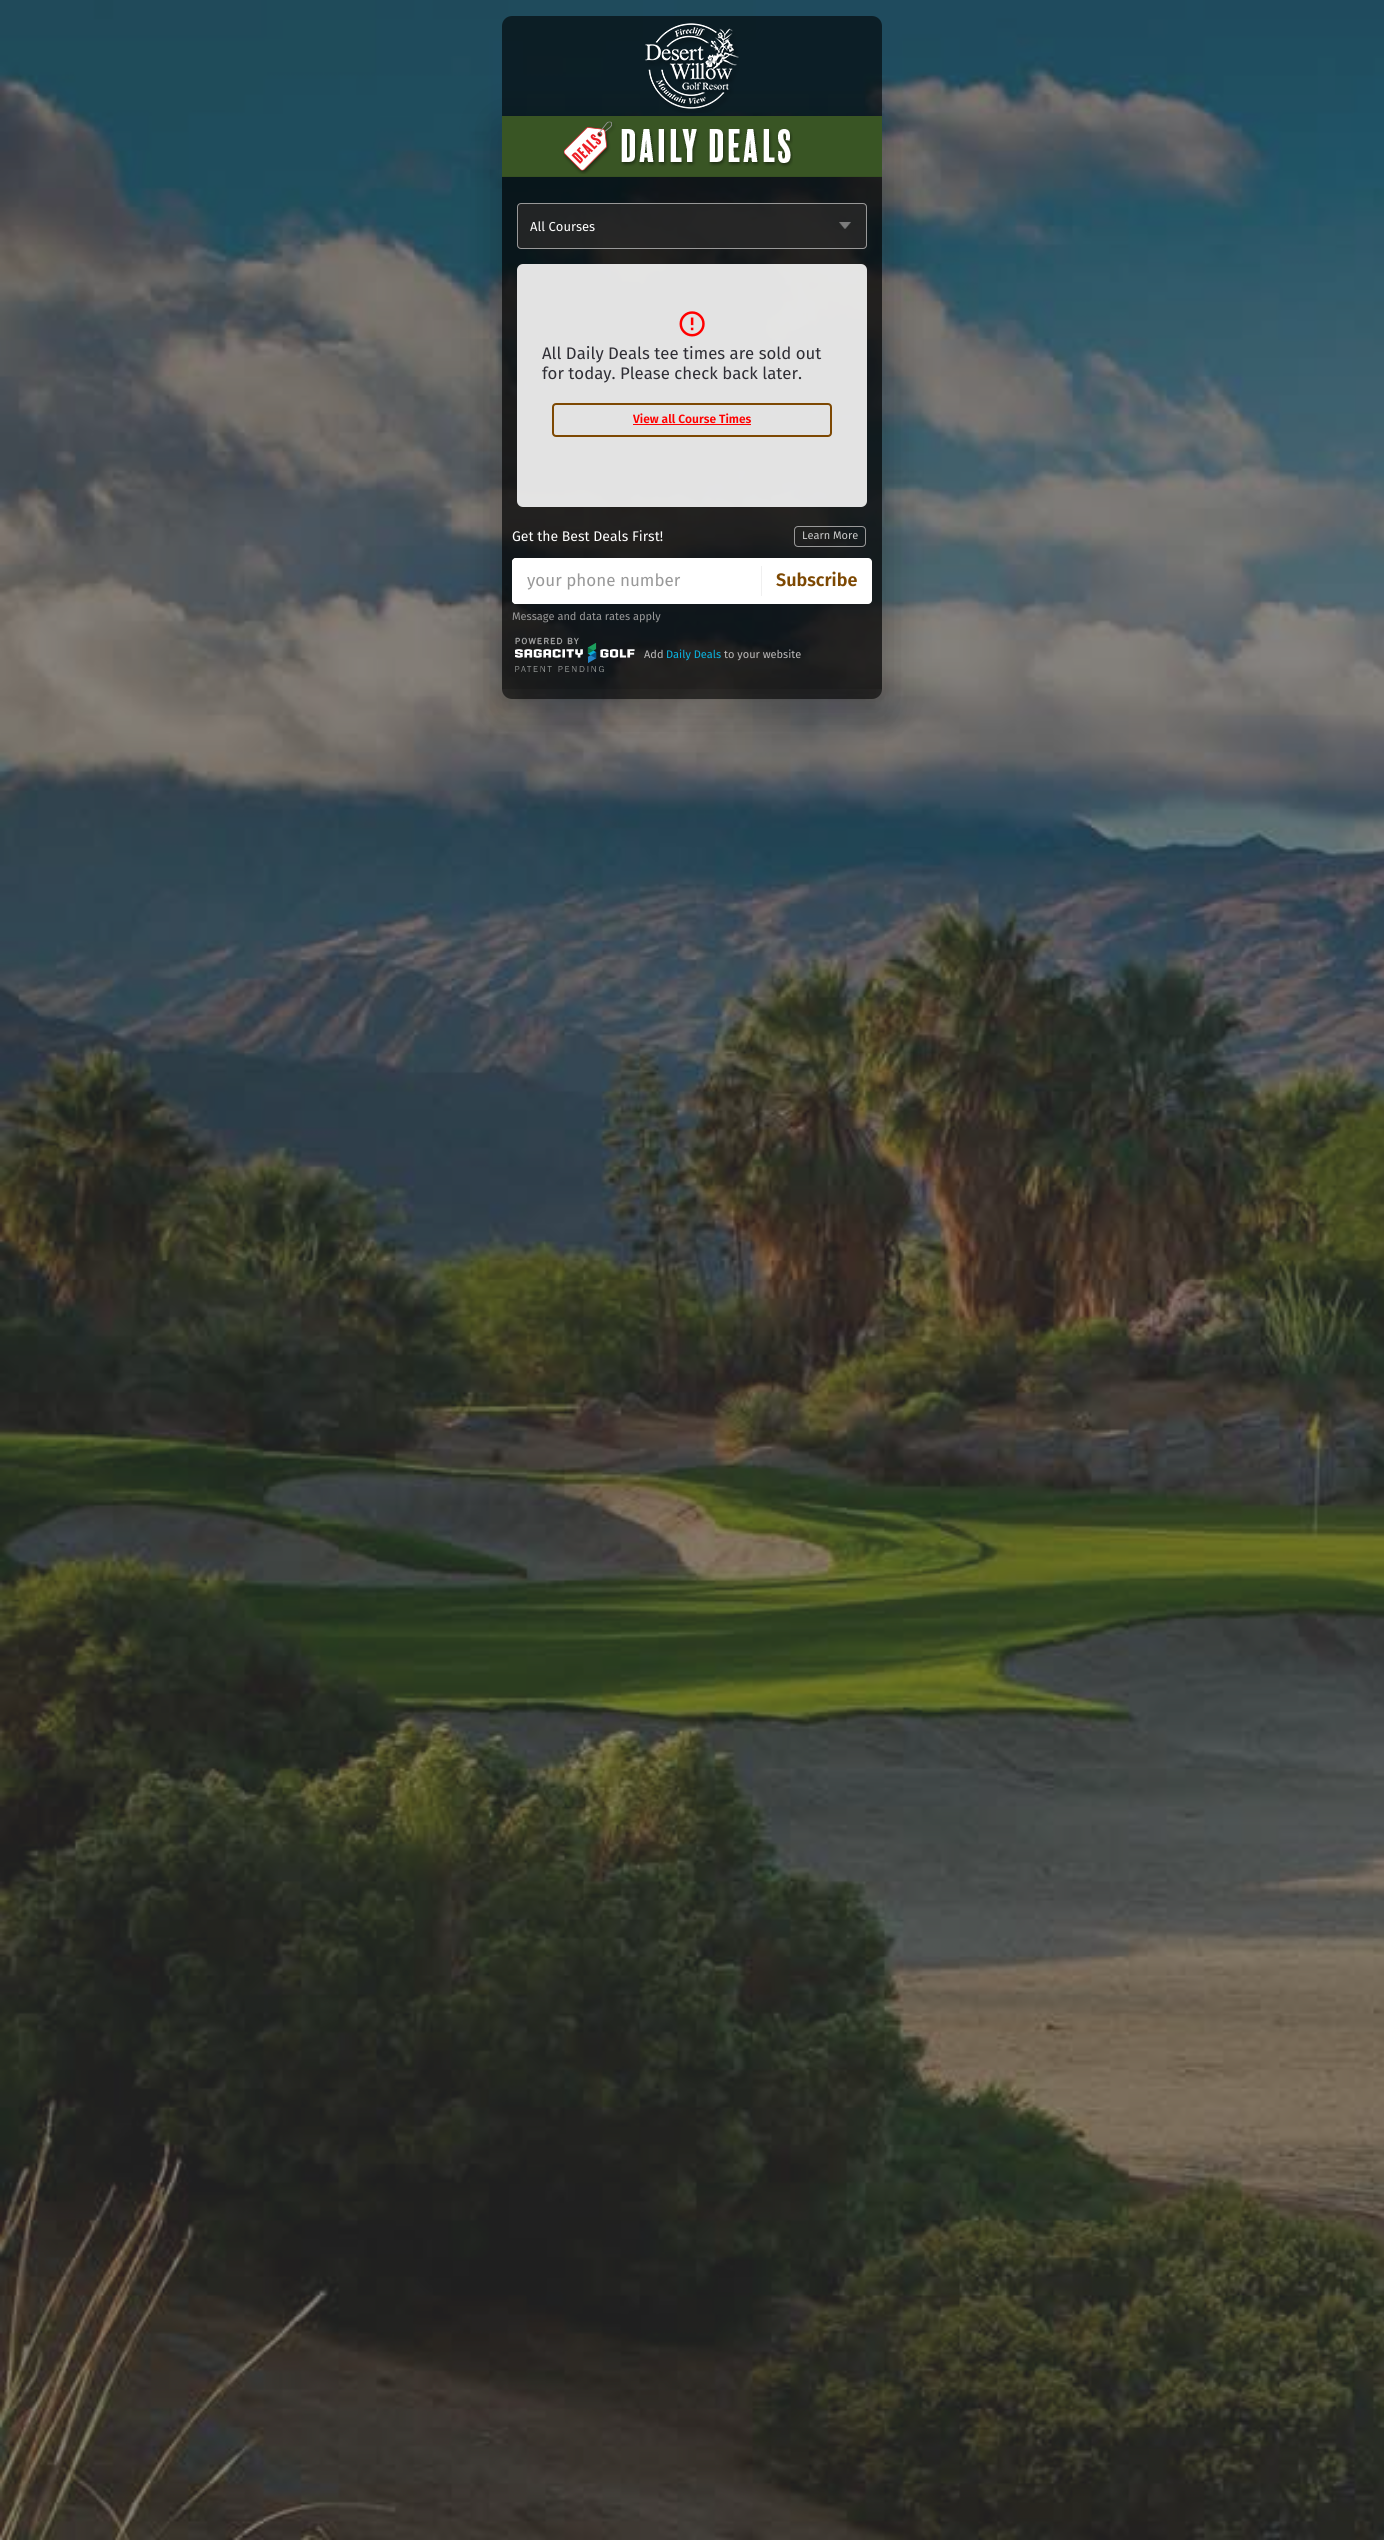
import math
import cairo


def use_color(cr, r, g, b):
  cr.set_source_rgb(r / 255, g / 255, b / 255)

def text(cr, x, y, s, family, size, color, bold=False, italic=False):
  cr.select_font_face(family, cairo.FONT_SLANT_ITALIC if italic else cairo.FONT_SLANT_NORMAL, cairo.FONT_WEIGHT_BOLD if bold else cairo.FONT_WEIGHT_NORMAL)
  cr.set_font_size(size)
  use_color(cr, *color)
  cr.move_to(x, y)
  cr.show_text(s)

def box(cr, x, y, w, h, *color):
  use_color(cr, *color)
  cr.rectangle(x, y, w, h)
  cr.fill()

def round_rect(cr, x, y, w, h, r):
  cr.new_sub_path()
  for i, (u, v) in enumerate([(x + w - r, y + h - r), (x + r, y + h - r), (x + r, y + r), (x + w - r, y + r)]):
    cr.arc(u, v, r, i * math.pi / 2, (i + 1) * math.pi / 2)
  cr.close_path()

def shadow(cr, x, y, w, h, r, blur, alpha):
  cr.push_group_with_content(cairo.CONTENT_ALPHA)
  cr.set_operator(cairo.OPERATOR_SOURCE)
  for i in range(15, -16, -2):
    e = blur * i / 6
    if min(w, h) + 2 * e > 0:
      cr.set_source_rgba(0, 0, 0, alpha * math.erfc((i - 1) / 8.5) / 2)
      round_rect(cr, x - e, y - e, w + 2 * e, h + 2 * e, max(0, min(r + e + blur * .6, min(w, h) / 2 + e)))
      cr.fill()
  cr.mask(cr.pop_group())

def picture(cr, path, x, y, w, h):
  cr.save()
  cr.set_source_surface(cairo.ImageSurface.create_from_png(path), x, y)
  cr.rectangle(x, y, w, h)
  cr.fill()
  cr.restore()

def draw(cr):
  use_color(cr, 51, 51, 51)
  cr.paint()
  picture(cr, "img_01.png", 0, 0, 1384, 2540)
  cr.set_source_rgba(0, 0, 0, 0.6)
  round_rect(cr, 502, 16, 380, 683, 10)
  cr.fill()
  picture(cr, "img_02.png", 645, 23, 94, 90)
  cr.save()
  cr.set_fill_rule(cairo.FILL_RULE_EVEN_ODD)
  cr.new_path()
  cr.move_to(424, 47)
  cr.line_to(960, 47)
  cr.line_to(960, 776)
  cr.line_to(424, 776)
  cr.close_path()
  cr.move_to(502, 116)
  cr.line_to(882, 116)
  cr.line_to(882, 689)
  cr.line_to(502, 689)
  cr.close_path()
  cr.clip()
  use_color(cr, 0, 0, 0)
  shadow(cr, 494, 117, 396, 589, 0, 23, 0.12)
  cr.restore()
  cr.save()
  cr.set_fill_rule(cairo.FILL_RULE_EVEN_ODD)
  cr.new_path()
  cr.move_to(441, 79)
  cr.line_to(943, 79)
  cr.line_to(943, 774)
  cr.line_to(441, 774)
  cr.close_path()
  cr.move_to(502, 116)
  cr.line_to(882, 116)
  cr.line_to(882, 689)
  cr.line_to(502, 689)
  cr.close_path()
  cr.clip()
  use_color(cr, 0, 0, 0)
  shadow(cr, 499, 137, 386, 579, 0, 19, 0.14)
  cr.restore()
  box(cr, 502, 116, 380, 60, 57, 85, 36)
  box(cr, 502, 176, 380, 1, 54, 80, 34)
  picture(cr, "img_03.png", 563, 121, 230, 53)
  cr.set_source_rgba(0, 0, 0, 0.3)
  cr.rectangle(502, 177, 380, 512)
  cr.fill()
  cr.set_source_rgba(0.157, 0.157, 0.157, 0.8)
  round_rect(cr, 517, 203, 350, 46, 4)
  cr.fill()
  picture(cr, "img_04.png", 839, 222, 12, 7)
  round_rect(cr, 517.5, 203.5, 349, 45, 3.5)
  use_color(cr, 153, 153, 153)
  cr.set_line_width(1)
  cr.stroke()
  cr.set_source_rgba(0.933, 0.933, 0.933, 0.95)
  round_rect(cr, 517, 264, 350, 243, 6)
  cr.fill()
  picture(cr, "img_05.png", 679, 311, 26, 26)
  round_rect(cr, 553, 404, 278, 32, 3)
  use_color(cr, 125, 72, 2)
  cr.set_line_width(2)
  cr.stroke()
  box(cr, 633, 424, 118, 1, 255, 0, 0)
  round_rect(cr, 794.5, 526.5, 71, 20, 3.5)
  use_color(cr, 153, 153, 153)
  cr.set_line_width(1)
  cr.stroke()
  use_color(cr, 255, 255, 255)
  round_rect(cr, 512, 558, 360, 46, 4)
  cr.fill()
  round_rect(cr, 512, 558, 249, 46, 4)
  cr.fill()
  box(cr, 761, 566, 1, 30, 240, 240, 240)
  picture(cr, "img_06.png", 515, 637, 120, 35)
  text(cr, 530, 231, "All Courses", "Fira Sans", 13, (255, 255, 255))
  text(cr, 542, 359, "All Daily Deals tee times are sold out", "Fira Sans", 16.75, (47, 46, 53))
  text(cr, 542, 379, "for today. Please check back later.", "Fira Sans", 16.75, (47, 46, 53))
  text(cr, 633, 423, "View all Course Times", "Fira Sans SemiBold", 12, (255, 0, 0))
  text(cr, 512, 541, "Get the Best Deals First!", "Fira Sans", 14, (255, 255, 255))
  text(cr, 802, 539, "Learn More", "Fira Sans", 11, (204, 204, 204))
  text(cr, 527, 586, "your phone number", "Fira Sans", 17, (153, 153, 153))
  text(cr, 776, 586, "Subscribe", "Fira Sans SemiBold", 18, (125, 72, 2))
  text(cr, 512, 620, "Message and data rates apply", "Fira Sans", 11, (153, 153, 153))
  text(cr, 644, 658, "Add", "Fira Sans", 11, (187, 185, 185))
  text(cr, 666, 658, "Daily Deals", "Fira Sans", 11, (9, 180, 226))
  text(cr, 724, 658, "to your website", "Fira Sans", 11, (187, 185, 185))


surface = cairo.ImageSurface(cairo.FORMAT_RGB24, 1384, 2540)
cr = cairo.Context(surface)
options = cairo.FontOptions()
options.set_hint_metrics(cairo.HINT_METRICS_OFF)
options.set_hint_style(cairo.HINT_STYLE_NONE)
cr.set_font_options(options)
cr.set_miter_limit(4)
draw(cr)
surface.write_to_png("out.png")
